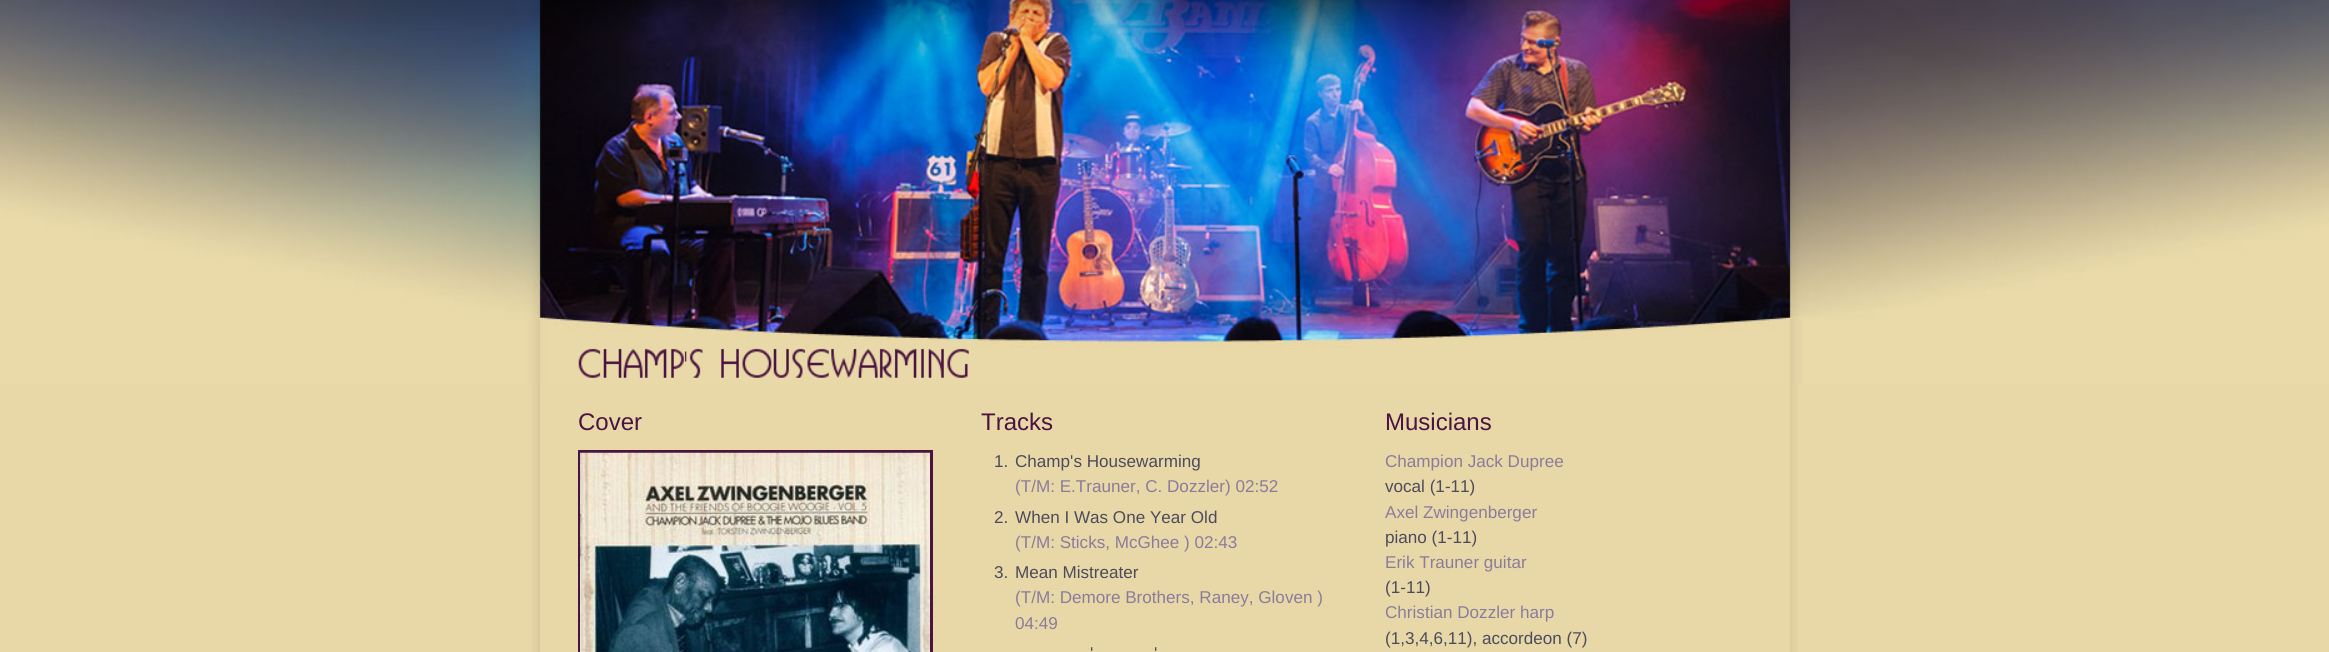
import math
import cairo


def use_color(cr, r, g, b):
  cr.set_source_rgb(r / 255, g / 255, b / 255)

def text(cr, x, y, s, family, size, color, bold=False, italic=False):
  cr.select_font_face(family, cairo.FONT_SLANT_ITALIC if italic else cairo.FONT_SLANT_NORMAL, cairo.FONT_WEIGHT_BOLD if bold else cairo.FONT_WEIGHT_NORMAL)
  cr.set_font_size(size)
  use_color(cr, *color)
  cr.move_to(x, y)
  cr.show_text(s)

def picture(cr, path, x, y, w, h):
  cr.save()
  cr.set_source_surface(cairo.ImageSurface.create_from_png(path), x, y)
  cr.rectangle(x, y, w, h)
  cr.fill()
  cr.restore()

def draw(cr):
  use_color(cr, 233, 216, 167)
  cr.paint()
  picture(cr, "img_01.png", 0, 0, 2329, 384)
  picture(cr, "img_02.png", 535, 0, 1260, 349)
  picture(cr, "img_03.png", 532, 384, 1266, 268)
  picture(cr, "img_04.png", 578, 348, 391, 30)
  cr.rectangle(579.5, 451.5, 352, 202)
  use_color(cr, 74, 19, 65)
  cr.set_line_width(3)
  cr.stroke()
  picture(cr, "img_05.png", 580, 452, 350, 200)
  text(cr, 578, 430, "Cover", "Liberation Sans", 24, (74, 19, 65))
  text(cr, 981, 430, "Tracks", "Liberation Sans", 24, (74, 19, 65))
  text(cr, 994, 467, "1.", "Liberation Sans", 17.1, (74, 75, 92))
  text(cr, 1015, 467, "Champ's Housewarming", "Liberation Sans", 17.1, (74, 75, 92))
  text(cr, 1015, 492, "(T/M: E.Trauner, C. Dozzler) 02:52", "Liberation Sans", 17.1, (138, 123, 156))
  text(cr, 994, 523, "2.", "Liberation Sans", 17.1, (74, 75, 92))
  text(cr, 1015, 523, "When I Was One Year Old", "Liberation Sans", 17.1, (74, 75, 92))
  text(cr, 1015, 548, "(T/M: Sticks, McGhee ) 02:43", "Liberation Sans", 17.1, (138, 123, 156))
  text(cr, 994, 578, "3.", "Liberation Sans", 17.1, (74, 75, 92))
  text(cr, 1015, 578, "Mean Mistreater", "Liberation Sans", 17.1, (74, 75, 92))
  text(cr, 1015, 603, "(T/M: Demore Brothers, Raney, Gloven )", "Liberation Sans", 17.1, (138, 123, 156))
  text(cr, 1015, 629, "04:49", "Liberation Sans", 17.1, (138, 123, 156))
  text(cr, 1090, 659, "'", "Liberation Sans", 17.1, (74, 75, 92))
  text(cr, 1154, 659, "'", "Liberation Sans", 17.1, (74, 75, 92))
  text(cr, 1385, 430, "Musicians", "Liberation Sans", 24, (74, 19, 65))
  text(cr, 1385, 467, "Champion Jack Dupree", "Liberation Sans", 17.1, (138, 123, 156))
  text(cr, 1385, 492, "vocal (1-11)", "Liberation Sans", 17.1, (74, 75, 92))
  text(cr, 1385, 518, "Axel Zwingenberger", "Liberation Sans", 17.1, (138, 123, 156))
  text(cr, 1385, 543, "piano (1-11)", "Liberation Sans", 17.1, (74, 75, 92))
  text(cr, 1385, 568, "Erik Trauner guitar", "Liberation Sans", 17.1, (138, 123, 156))
  text(cr, 1385, 593, "(1-11)", "Liberation Sans", 17.1, (74, 75, 92))
  text(cr, 1385, 618, "Christian Dozzler harp", "Liberation Sans", 17.1, (138, 123, 156))
  text(cr, 1385, 644, "(1,3,4,6,11), accordeon (7)", "Liberation Sans", 17.1, (74, 75, 92))


surface = cairo.ImageSurface(cairo.FORMAT_RGB24, 2329, 652)
cr = cairo.Context(surface)
options = cairo.FontOptions()
options.set_hint_metrics(cairo.HINT_METRICS_OFF)
options.set_hint_style(cairo.HINT_STYLE_NONE)
cr.set_font_options(options)
cr.set_miter_limit(4)
draw(cr)
surface.write_to_png("out.png")
